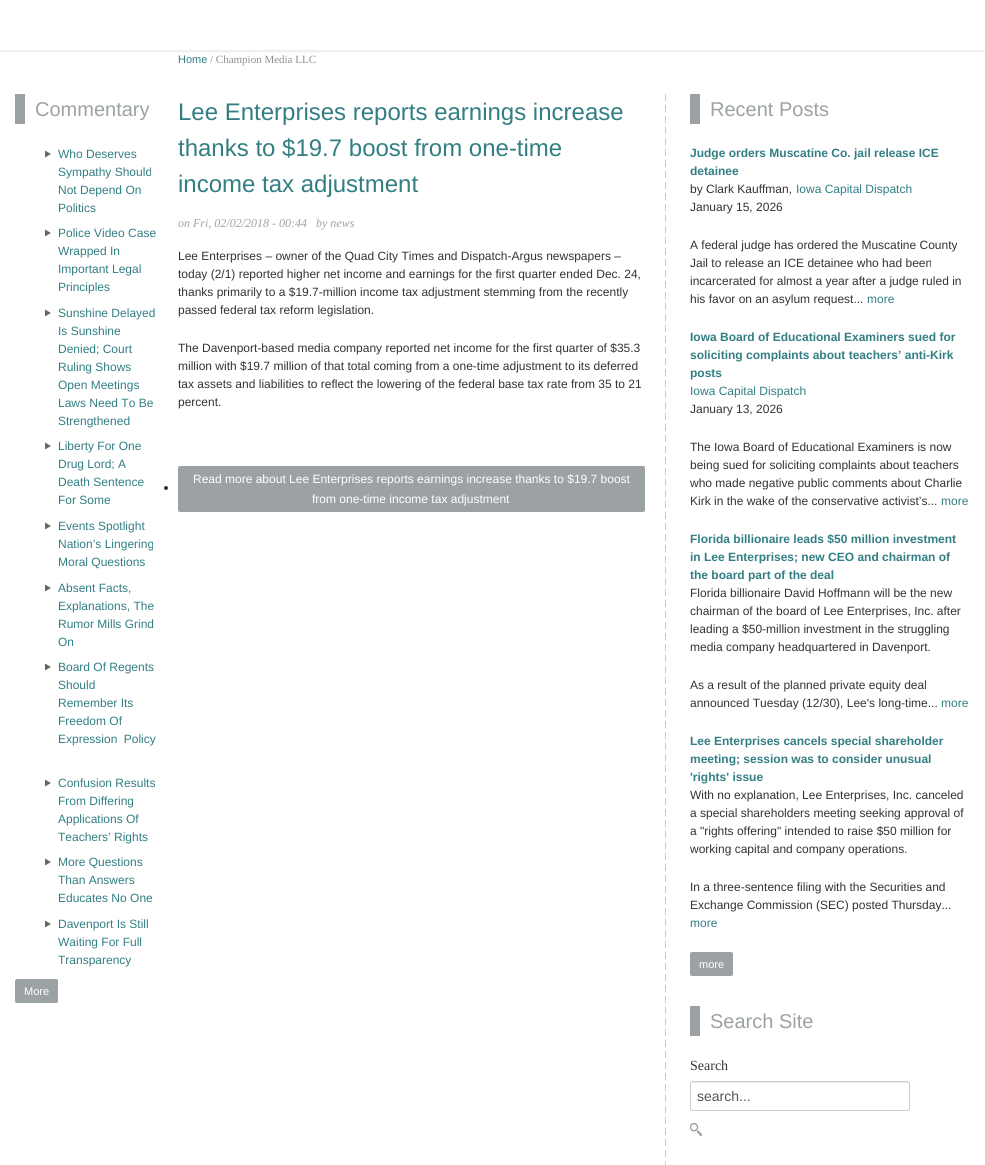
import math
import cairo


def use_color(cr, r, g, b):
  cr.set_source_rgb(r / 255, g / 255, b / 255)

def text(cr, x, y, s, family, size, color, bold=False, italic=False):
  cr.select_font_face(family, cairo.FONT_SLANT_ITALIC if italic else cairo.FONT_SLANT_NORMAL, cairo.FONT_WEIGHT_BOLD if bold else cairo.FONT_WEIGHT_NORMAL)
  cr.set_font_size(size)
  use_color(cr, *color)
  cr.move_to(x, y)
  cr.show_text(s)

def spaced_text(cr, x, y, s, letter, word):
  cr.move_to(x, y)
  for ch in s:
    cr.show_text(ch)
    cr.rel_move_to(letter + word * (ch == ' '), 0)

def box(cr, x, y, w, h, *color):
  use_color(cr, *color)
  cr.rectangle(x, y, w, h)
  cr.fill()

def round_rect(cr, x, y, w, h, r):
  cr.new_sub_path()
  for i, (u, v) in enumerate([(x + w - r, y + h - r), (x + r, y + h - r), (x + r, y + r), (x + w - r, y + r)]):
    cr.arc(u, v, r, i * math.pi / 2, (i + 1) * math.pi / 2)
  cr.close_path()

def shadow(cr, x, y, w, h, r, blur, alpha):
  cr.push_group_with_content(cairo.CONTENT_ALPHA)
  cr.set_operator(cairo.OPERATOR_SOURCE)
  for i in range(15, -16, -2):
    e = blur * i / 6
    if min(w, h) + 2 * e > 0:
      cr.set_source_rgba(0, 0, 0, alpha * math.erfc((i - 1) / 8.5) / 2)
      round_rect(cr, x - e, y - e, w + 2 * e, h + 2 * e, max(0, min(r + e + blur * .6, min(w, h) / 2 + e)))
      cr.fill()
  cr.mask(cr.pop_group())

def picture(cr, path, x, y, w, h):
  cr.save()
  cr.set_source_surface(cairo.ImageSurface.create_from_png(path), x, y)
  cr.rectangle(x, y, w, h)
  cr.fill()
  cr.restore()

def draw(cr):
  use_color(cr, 255, 255, 255)
  cr.paint()
  cr.save()
  cr.rectangle(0, 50, 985, 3)
  cr.clip()
  use_color(cr, 50, 50, 50)
  shadow(cr, 0, 2, 985, 50, 0, 1, 0.1)
  cr.restore()
  box(cr, 15, 94, 10, 30, 156, 162, 164)
  picture(cr, "img_01.png", 45, 150, 6, 8)
  picture(cr, "img_01.png", 45, 229, 6, 8)
  picture(cr, "img_01.png", 45, 309, 6, 8)
  picture(cr, "img_01.png", 45, 442, 6, 8)
  picture(cr, "img_01.png", 45, 522, 6, 8)
  picture(cr, "img_01.png", 45, 584, 6, 8)
  picture(cr, "img_01.png", 45, 663, 6, 8)
  picture(cr, "img_01.png", 45, 779, 6, 8)
  picture(cr, "img_01.png", 45, 858, 6, 8)
  picture(cr, "img_01.png", 45, 920, 6, 8)
  round_rect(cr, 15, 979, 43, 24, 2)
  cr.fill()
  use_color(cr, 51, 51, 51)
  cr.arc(166, 488, 2, 0, 2 * math.pi)
  cr.fill()
  use_color(cr, 156, 162, 164)
  round_rect(cr, 178, 466, 467, 46, 2)
  cr.fill()
  picture(cr, "img_02.png", 665, 94, 1, 1071)
  box(cr, 690, 94, 10, 30, 156, 162, 164)
  round_rect(cr, 690, 952, 43, 24, 2)
  cr.fill()
  box(cr, 690, 1006, 10, 30, 156, 162, 164)
  use_color(cr, 236, 236, 236)
  cr.new_path()
  cr.move_to(693, 1083)
  cr.line_to(907, 1083)
  cr.curve_to(908, 1083, 909, 1084, 909, 1085)
  cr.curve_to(909, 1084, 909, 1082, 907, 1082)
  cr.line_to(693, 1082)
  cr.line_to(692, 1083)
  cr.line_to(691, 1085)
  cr.curve_to(691, 1084, 692, 1083, 693, 1083)
  cr.close_path()
  cr.fill()
  round_rect(cr, 690.5, 1081.5, 219, 29, 2.5)
  use_color(cr, 204, 204, 204)
  cr.set_line_width(1)
  cr.stroke()
  picture(cr, "img_03.png", 690, 1123, 12, 13)
  text(cr, 178, 63, "Home", "Liberation Sans", 11, (50, 126, 131))
  text(cr, 210, 63, "/ Champion Media LLC", "Liberation Serif", 11, (143, 143, 143))
  text(cr, 35, 116, "Commentary", "Liberation Sans", 20, (156, 162, 164))
  text(cr, 58, 158, "Who Deserves", "Liberation Sans", 12, (50, 126, 131))
  text(cr, 58, 176, "Sympathy Should", "Liberation Sans", 12, (50, 126, 131))
  text(cr, 58, 194, "Not Depend On", "Liberation Sans", 12, (50, 126, 131))
  text(cr, 58, 212, "Politics", "Liberation Sans", 12, (50, 126, 131))
  text(cr, 58, 237, "Police Video Case", "Liberation Sans", 12, (50, 126, 131))
  text(cr, 58, 255, "Wrapped In", "Liberation Sans", 12, (50, 126, 131))
  text(cr, 58, 273, "Important Legal", "Liberation Sans", 12, (50, 126, 131))
  text(cr, 58, 291, "Principles", "Liberation Sans", 12, (50, 126, 131))
  text(cr, 58, 317, "Sunshine Delayed", "Liberation Sans", 12, (50, 126, 131))
  text(cr, 58, 335, "Is Sunshine", "Liberation Sans", 12, (50, 126, 131))
  text(cr, 58, 353, "Denied; Court", "Liberation Sans", 12, (50, 126, 131))
  text(cr, 58, 371, "Ruling Shows", "Liberation Sans", 12, (50, 126, 131))
  text(cr, 58, 389, "Open Meetings", "Liberation Sans", 12, (50, 126, 131))
  text(cr, 58, 407, "Laws Need To Be", "Liberation Sans", 12, (50, 126, 131))
  text(cr, 58, 425, "Strengthened", "Liberation Sans", 12, (50, 126, 131))
  text(cr, 58, 450, "Liberty For One", "Liberation Sans", 12, (50, 126, 131))
  text(cr, 58, 468, "Drug Lord; A", "Liberation Sans", 12, (50, 126, 131))
  text(cr, 58, 486, "Death Sentence", "Liberation Sans", 12, (50, 126, 131))
  text(cr, 58, 504, "For Some", "Liberation Sans", 12, (50, 126, 131))
  text(cr, 58, 530, "Events Spotlight", "Liberation Sans", 12, (50, 126, 131))
  text(cr, 58, 548, "Nation’s Lingering", "Liberation Sans", 12, (50, 126, 131))
  text(cr, 58, 566, "Moral Questions", "Liberation Sans", 12, (50, 126, 131))
  text(cr, 58, 592, "Absent Facts,", "Liberation Sans", 12, (50, 126, 131))
  text(cr, 58, 610, "Explanations, The", "Liberation Sans", 12, (50, 126, 131))
  text(cr, 58, 628, "Rumor Mills Grind", "Liberation Sans", 12, (50, 126, 131))
  text(cr, 58, 646, "On", "Liberation Sans", 12, (50, 126, 131))
  text(cr, 58, 671, "Board Of Regents", "Liberation Sans", 12, (50, 126, 131))
  text(cr, 58, 689, "Should", "Liberation Sans", 12, (50, 126, 131))
  text(cr, 58, 707, "Remember Its", "Liberation Sans", 12, (50, 126, 131))
  text(cr, 58, 725, "Freedom Of", "Liberation Sans", 12, (50, 126, 131))
  spaced_text(cr, 58, 743, "Expression Policy", 0, 3)
  text(cr, 58, 787, "Confusion Results", "Liberation Sans", 12, (50, 126, 131))
  text(cr, 58, 805, "From Differing", "Liberation Sans", 12, (50, 126, 131))
  text(cr, 58, 823, "Applications Of", "Liberation Sans", 12, (50, 126, 131))
  text(cr, 58, 841, "Teachers’ Rights", "Liberation Sans", 12, (50, 126, 131))
  text(cr, 58, 866, "More Questions", "Liberation Sans", 12, (50, 126, 131))
  text(cr, 58, 884, "Than Answers", "Liberation Sans", 12, (50, 126, 131))
  text(cr, 58, 902, "Educates No One", "Liberation Sans", 12, (50, 126, 131))
  text(cr, 58, 928, "Davenport Is Still", "Liberation Sans", 12, (50, 126, 131))
  text(cr, 58, 946, "Waiting For Full", "Liberation Sans", 12, (50, 126, 131))
  text(cr, 58, 964, "Transparency", "Liberation Sans", 12, (50, 126, 131))
  text(cr, 24, 995, "More", "Liberation Sans", 11, (255, 255, 255))
  text(cr, 178, 120, "Lee Enterprises reports earnings increase", "Liberation Sans", 24, (50, 126, 131))
  text(cr, 178, 156, "thanks to $19.7 boost from one-time", "Liberation Sans", 24, (50, 126, 131))
  text(cr, 178, 192, "income tax adjustment", "Liberation Sans", 24, (50, 126, 131))
  text(cr, 178, 227, "on Fri, 02/02/2018 - 00:44   by news", "Liberation Serif", 12, (156, 162, 164), italic=True)
  text(cr, 178, 260, "Lee Enterprises – owner of the Quad City Times and Dispatch-Argus newspapers –", "Liberation Sans", 12, (51, 51, 51))
  text(cr, 178, 278, "today (2/1) reported higher net income and earnings for the first quarter ended Dec. 24,", "Liberation Sans", 12, (51, 51, 51))
  text(cr, 178, 296, "thanks primarily to a $19.7-million income tax adjustment stemming from the recently", "Liberation Sans", 12, (51, 51, 51))
  text(cr, 178, 314, "passed federal tax reform legislation.", "Liberation Sans", 12, (51, 51, 51))
  text(cr, 178, 352, "The Davenport-based media company reported net income for the first quarter of $35.3", "Liberation Sans", 12, (51, 51, 51))
  text(cr, 178, 370, "million with $19.7 million of that total coming from a one-time adjustment to its deferred", "Liberation Sans", 12, (51, 51, 51))
  text(cr, 178, 388, "tax assets and liabilities to reflect the lowering of the federal base tax rate from 35 to 21", "Liberation Sans", 12, (51, 51, 51))
  text(cr, 178, 406, "percent.", "Liberation Sans", 12, (51, 51, 51))
  text(cr, 193, 483, "Read more about Lee Enterprises reports earnings increase thanks to $19.7 boost", "Liberation Sans", 12, (255, 255, 255))
  text(cr, 312, 503, "from one-time income tax adjustment", "Liberation Sans", 12, (255, 255, 255))
  text(cr, 710, 116, "Recent Posts", "Liberation Sans", 20, (156, 162, 164))
  text(cr, 690, 157, "Judge orders Muscatine Co. jail release ICE", "Liberation Sans", 12, (50, 126, 131), bold=True)
  text(cr, 690, 175, "detainee", "Liberation Sans", 12, (50, 126, 131), bold=True)
  text(cr, 690, 193, "by Clark Kauffman,", "Liberation Sans", 12, (51, 51, 51))
  text(cr, 796, 193, "Iowa Capital Dispatch", "Liberation Sans", 12, (50, 126, 131))
  text(cr, 690, 211, "January 15, 2026", "Liberation Sans", 12, (51, 51, 51))
  text(cr, 690, 249, "A federal judge has ordered the Muscatine County", "Liberation Sans", 12, (51, 51, 51))
  text(cr, 690, 267, "Jail to release an ICE detainee who had been", "Liberation Sans", 12, (51, 51, 51))
  text(cr, 690, 285, "incarcerated for almost a year after a judge ruled in", "Liberation Sans", 12, (51, 51, 51))
  text(cr, 690, 303, "his favor on an asylum request...", "Liberation Sans", 12, (51, 51, 51))
  text(cr, 867, 303, "more", "Liberation Sans", 12, (50, 126, 131))
  text(cr, 690, 341, "Iowa Board of Educational Examiners sued for", "Liberation Sans", 12, (50, 126, 131), bold=True)
  text(cr, 690, 359, "soliciting complaints about teachers’ anti-Kirk", "Liberation Sans", 12, (50, 126, 131), bold=True)
  text(cr, 690, 377, "posts", "Liberation Sans", 12, (50, 126, 131), bold=True)
  text(cr, 690, 395, "Iowa Capital Dispatch", "Liberation Sans", 12, (50, 126, 131))
  text(cr, 690, 413, "January 13, 2026", "Liberation Sans", 12, (51, 51, 51))
  text(cr, 690, 451, "The Iowa Board of Educational Examiners is now", "Liberation Sans", 12, (51, 51, 51))
  text(cr, 690, 469, "being sued for soliciting complaints about teachers", "Liberation Sans", 12, (51, 51, 51))
  text(cr, 690, 487, "who made negative public comments about Charlie", "Liberation Sans", 12, (51, 51, 51))
  text(cr, 690, 505, "Kirk in the wake of the conservative activist’s...", "Liberation Sans", 12, (51, 51, 51))
  text(cr, 941, 505, "more", "Liberation Sans", 12, (50, 126, 131))
  text(cr, 690, 543, "Florida billionaire leads $50 million investment", "Liberation Sans", 12, (50, 126, 131), bold=True)
  text(cr, 690, 561, "in Lee Enterprises; new CEO and chairman of", "Liberation Sans", 12, (50, 126, 131), bold=True)
  text(cr, 690, 579, "the board part of the deal", "Liberation Sans", 12, (50, 126, 131), bold=True)
  text(cr, 690, 597, "Florida billionaire David Hoffmann will be the new", "Liberation Sans", 12, (51, 51, 51))
  text(cr, 690, 615, "chairman of the board of Lee Enterprises, Inc. after", "Liberation Sans", 12, (51, 51, 51))
  text(cr, 690, 633, "leading a $50-million investment in the struggling", "Liberation Sans", 12, (51, 51, 51))
  text(cr, 690, 651, "media company headquartered in Davenport.", "Liberation Sans", 12, (51, 51, 51))
  text(cr, 690, 689, "As a result of the planned private equity deal", "Liberation Sans", 12, (51, 51, 51))
  text(cr, 690, 707, "announced Tuesday (12/30), Lee's long-time...", "Liberation Sans", 12, (51, 51, 51))
  text(cr, 941, 707, "more", "Liberation Sans", 12, (50, 126, 131))
  text(cr, 690, 745, "Lee Enterprises cancels special shareholder", "Liberation Sans", 12, (50, 126, 131), bold=True)
  text(cr, 690, 763, "meeting; session was to consider unusual", "Liberation Sans", 12, (50, 126, 131), bold=True)
  text(cr, 690, 781, "'rights' issue", "Liberation Sans", 12, (50, 126, 131), bold=True)
  text(cr, 690, 799, "With no explanation, Lee Enterprises, Inc. canceled", "Liberation Sans", 12, (51, 51, 51))
  text(cr, 690, 817, "a special shareholders meeting seeking approval of", "Liberation Sans", 12, (51, 51, 51))
  text(cr, 690, 835, "a \"rights offering\" intended to raise $50 million for", "Liberation Sans", 12, (51, 51, 51))
  text(cr, 690, 853, "working capital and company operations.", "Liberation Sans", 12, (51, 51, 51))
  text(cr, 690, 891, "In a three-sentence filing with the Securities and", "Liberation Sans", 12, (51, 51, 51))
  text(cr, 690, 909, "Exchange Commission (SEC) posted Thursday...", "Liberation Sans", 12, (51, 51, 51))
  text(cr, 690, 927, "more", "Liberation Sans", 12, (50, 126, 131))
  text(cr, 699, 968, "more", "Liberation Sans", 11, (255, 255, 255))
  text(cr, 710, 1028, "Search Site", "Liberation Sans", 20, (156, 162, 164))
  text(cr, 690, 1070, "Search", "Liberation Serif", 14, (51, 51, 51))
  text(cr, 697, 1101, "search...", "Liberation Sans", 14, (85, 85, 85))


surface = cairo.ImageSurface(cairo.FORMAT_RGB24, 985, 1165)
cr = cairo.Context(surface)
options = cairo.FontOptions()
options.set_hint_metrics(cairo.HINT_METRICS_OFF)
options.set_hint_style(cairo.HINT_STYLE_NONE)
cr.set_font_options(options)
cr.set_miter_limit(4)
draw(cr)
surface.write_to_png("out.png")
